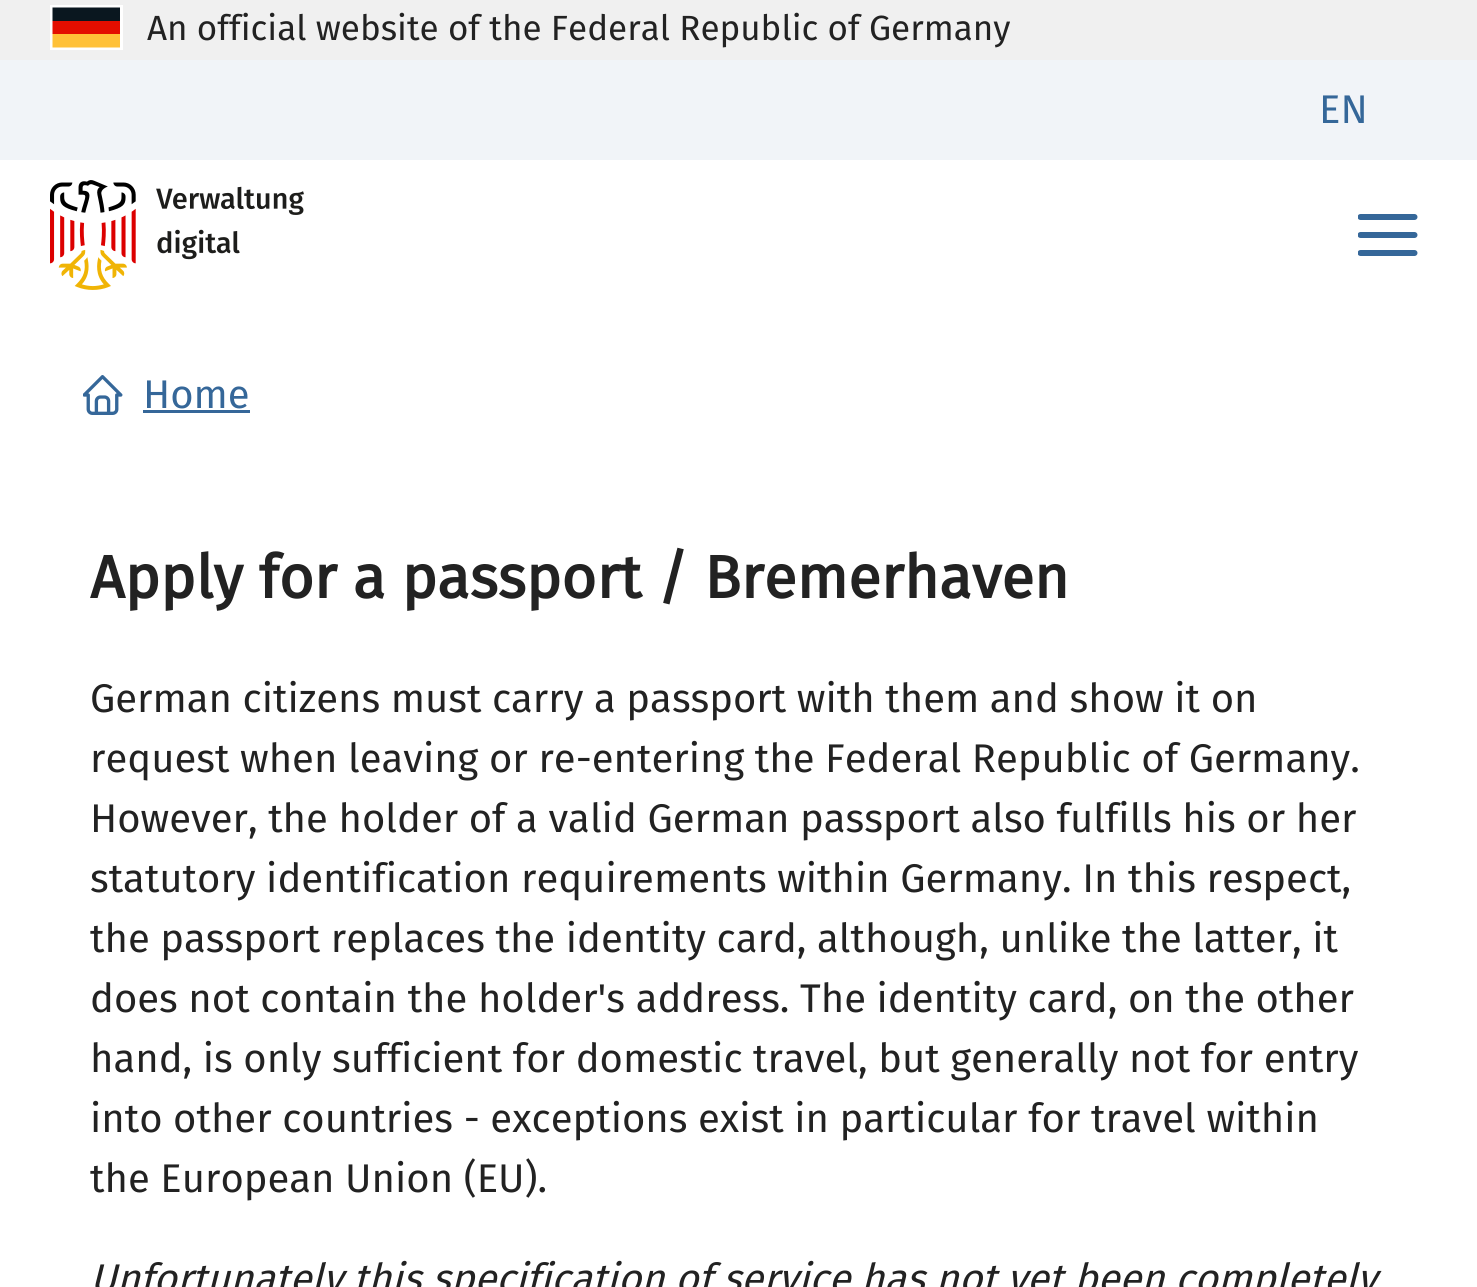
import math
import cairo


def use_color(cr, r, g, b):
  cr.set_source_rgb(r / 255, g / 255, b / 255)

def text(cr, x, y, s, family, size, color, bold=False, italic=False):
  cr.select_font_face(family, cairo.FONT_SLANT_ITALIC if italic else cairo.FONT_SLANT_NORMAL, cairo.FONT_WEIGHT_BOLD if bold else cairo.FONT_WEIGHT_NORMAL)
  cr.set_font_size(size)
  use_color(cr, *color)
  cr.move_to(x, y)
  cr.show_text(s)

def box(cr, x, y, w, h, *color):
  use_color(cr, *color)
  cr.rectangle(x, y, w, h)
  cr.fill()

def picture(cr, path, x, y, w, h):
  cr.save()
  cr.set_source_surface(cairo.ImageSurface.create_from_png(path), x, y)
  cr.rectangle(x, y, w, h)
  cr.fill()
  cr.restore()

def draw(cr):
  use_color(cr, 255, 255, 255)
  cr.paint()
  box(cr, 0, 0, 1477, 60, 240, 240, 240)
  cr.rectangle(51.5, 6.5, 70, 42)
  use_color(cr, 255, 255, 255)
  cr.set_line_width(3)
  cr.stroke()
  picture(cr, "img_01.png", 52, 7, 68, 41)
  box(cr, 0, 60, 1477, 100, 241, 244, 248)
  picture(cr, "img_02.png", 50, 180, 254, 110)
  picture(cr, "img_03.png", 1358, 214, 60, 42)
  picture(cr, "img_04.png", 83, 375, 40, 40)
  box(cr, 143, 410, 107, 3, 53, 103, 153)
  text(cr, 147, 40, "An official website of the Federal Republic of Germany", "Fira Sans", 35, (34, 34, 34))
  text(cr, 1319, 123, "EN", "Fira Sans", 40, (53, 103, 153))
  text(cr, 143, 408, "Home", "Fira Sans", 40, (53, 103, 153))
  text(cr, 90, 598, "Apply for a passport / Bremerhaven", "Fira Sans", 60, (34, 34, 34), bold=True)
  text(cr, 90, 712, "German citizens must carry a passport with them and show it on", "Fira Sans", 40, (34, 34, 34))
  text(cr, 90, 772, "request when leaving or re-entering the Federal Republic of Germany.", "Fira Sans", 40, (34, 34, 34))
  text(cr, 90, 832, "However, the holder of a valid German passport also fulfills his or her", "Fira Sans", 40, (34, 34, 34))
  text(cr, 90, 892, "statutory identification requirements within Germany. In this respect,", "Fira Sans", 40, (34, 34, 34))
  text(cr, 90, 952, "the passport replaces the identity card, although, unlike the latter, it", "Fira Sans", 40, (34, 34, 34))
  text(cr, 90, 1012, "does not contain the holder's address. The identity card, on the other", "Fira Sans", 40, (34, 34, 34))
  text(cr, 90, 1072, "hand, is only sufficient for domestic travel, but generally not for entry", "Fira Sans", 40, (34, 34, 34))
  text(cr, 90, 1132, "into other countries - exceptions exist in particular for travel within", "Fira Sans", 40, (34, 34, 34))
  text(cr, 90, 1192, "the European Union (EU).", "Fira Sans", 40, (34, 34, 34))
  text(cr, 90, 1292, "Unfortunately this specification of service has not yet been completely", "Fira Sans", 40, (34, 34, 34), italic=True)


surface = cairo.ImageSurface(cairo.FORMAT_RGB24, 1477, 1287)
cr = cairo.Context(surface)
options = cairo.FontOptions()
options.set_hint_metrics(cairo.HINT_METRICS_OFF)
options.set_hint_style(cairo.HINT_STYLE_NONE)
cr.set_font_options(options)
cr.set_miter_limit(4)
draw(cr)
surface.write_to_png("out.png")
